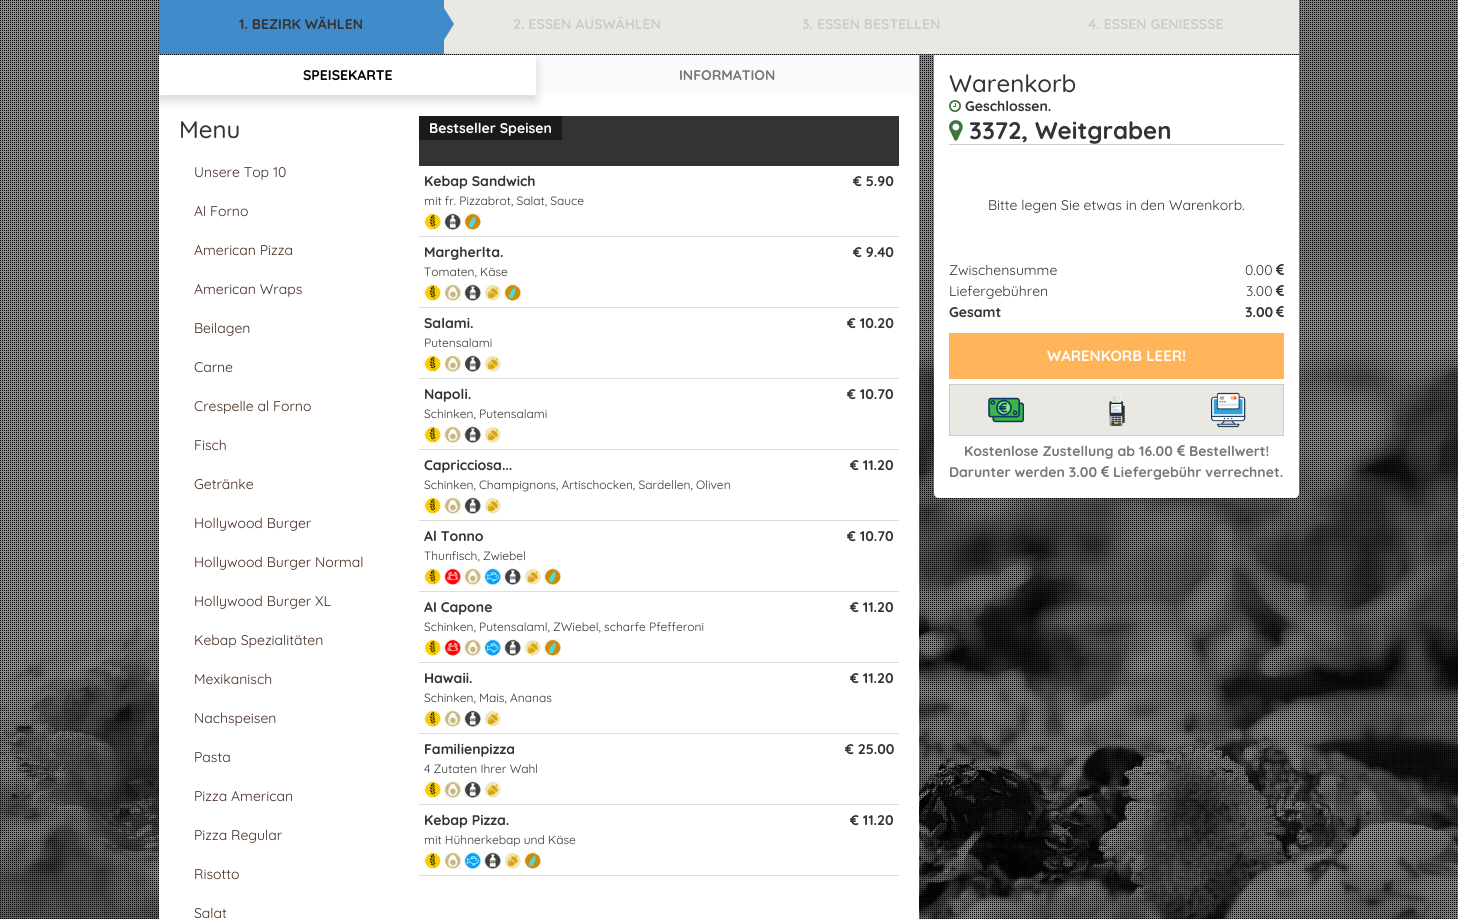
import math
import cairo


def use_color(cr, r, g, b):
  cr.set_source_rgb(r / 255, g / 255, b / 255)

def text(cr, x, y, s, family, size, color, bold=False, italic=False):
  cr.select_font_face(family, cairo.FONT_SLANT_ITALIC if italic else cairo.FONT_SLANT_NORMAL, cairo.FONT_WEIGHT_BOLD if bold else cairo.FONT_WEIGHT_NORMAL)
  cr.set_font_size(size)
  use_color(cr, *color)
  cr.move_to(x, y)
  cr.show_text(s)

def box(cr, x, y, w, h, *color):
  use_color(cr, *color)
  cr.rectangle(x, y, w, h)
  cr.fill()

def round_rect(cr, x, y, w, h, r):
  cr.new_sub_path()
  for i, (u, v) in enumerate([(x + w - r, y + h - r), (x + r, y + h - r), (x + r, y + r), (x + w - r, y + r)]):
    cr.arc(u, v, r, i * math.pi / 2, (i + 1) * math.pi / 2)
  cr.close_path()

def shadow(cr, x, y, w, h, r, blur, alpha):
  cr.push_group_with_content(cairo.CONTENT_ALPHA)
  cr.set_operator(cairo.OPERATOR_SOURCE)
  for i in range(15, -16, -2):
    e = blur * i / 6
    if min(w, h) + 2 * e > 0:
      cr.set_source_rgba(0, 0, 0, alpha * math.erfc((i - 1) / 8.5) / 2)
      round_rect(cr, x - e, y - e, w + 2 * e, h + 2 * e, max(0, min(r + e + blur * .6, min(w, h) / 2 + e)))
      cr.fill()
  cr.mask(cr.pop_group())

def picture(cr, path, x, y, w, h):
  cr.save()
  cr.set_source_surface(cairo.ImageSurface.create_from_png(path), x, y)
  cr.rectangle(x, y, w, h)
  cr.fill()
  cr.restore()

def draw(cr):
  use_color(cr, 255, 255, 255)
  cr.paint()
  picture(cr, "img_01.png", 0, 0, 1458, 919)
  box(cr, 159, 0, 285, 54, 66, 139, 202)
  box(cr, 444, 0, 855, 54, 234, 232, 227)
  use_color(cr, 66, 139, 202)
  cr.new_path()
  cr.move_to(444, 40)
  cr.line_to(444, 8)
  cr.line_to(454, 24)
  cr.close_path()
  cr.fill()
  box(cr, 536, 55, 383, 40, 250, 250, 250)
  box(cr, 159, 95, 760, 824, 255, 255, 255)
  box(cr, 419, 116, 480, 50, 51, 51, 51)
  box(cr, 419, 116, 143, 24, 26, 26, 26)
  use_color(cr, 0, 0, 0)
  shadow(cr, 159, 61, 377, 40, 0, 5, 0.15)
  box(cr, 159, 55, 377, 40, 255, 255, 255)
  box(cr, 419, 236, 480, 1, 221, 221, 221)
  picture(cr, "img_02.png", 424, 213, 17, 17)
  picture(cr, "img_03.png", 444, 213, 17, 17)
  picture(cr, "img_04.png", 464, 213, 17, 17)
  box(cr, 419, 307, 480, 1, 221, 221, 221)
  picture(cr, "img_02.png", 424, 284, 17, 17)
  picture(cr, "img_05.png", 444, 284, 17, 17)
  picture(cr, "img_03.png", 464, 284, 17, 17)
  picture(cr, "img_06.png", 484, 284, 17, 17)
  picture(cr, "img_07.png", 504, 284, 17, 17)
  box(cr, 419, 378, 480, 1, 221, 221, 221)
  picture(cr, "img_02.png", 424, 355, 17, 17)
  picture(cr, "img_05.png", 444, 355, 17, 17)
  picture(cr, "img_03.png", 464, 355, 17, 17)
  picture(cr, "img_06.png", 484, 355, 17, 17)
  box(cr, 419, 449, 480, 1, 221, 221, 221)
  picture(cr, "img_02.png", 424, 426, 17, 17)
  picture(cr, "img_05.png", 444, 426, 17, 17)
  picture(cr, "img_03.png", 464, 426, 17, 17)
  picture(cr, "img_06.png", 484, 426, 17, 17)
  box(cr, 419, 520, 480, 1, 221, 221, 221)
  picture(cr, "img_02.png", 424, 497, 17, 17)
  picture(cr, "img_05.png", 444, 497, 17, 17)
  picture(cr, "img_03.png", 464, 497, 17, 17)
  picture(cr, "img_06.png", 484, 497, 17, 17)
  box(cr, 419, 591, 480, 1, 221, 221, 221)
  picture(cr, "img_02.png", 424, 568, 17, 17)
  picture(cr, "img_08.png", 444, 568, 17, 17)
  picture(cr, "img_05.png", 464, 568, 17, 17)
  picture(cr, "img_09.png", 484, 568, 17, 17)
  picture(cr, "img_10.png", 504, 568, 17, 17)
  picture(cr, "img_11.png", 524, 568, 17, 17)
  picture(cr, "img_04.png", 544, 568, 17, 17)
  box(cr, 419, 662, 480, 1, 221, 221, 221)
  picture(cr, "img_02.png", 424, 639, 17, 17)
  picture(cr, "img_08.png", 444, 639, 17, 17)
  picture(cr, "img_05.png", 464, 639, 17, 17)
  picture(cr, "img_09.png", 484, 639, 17, 17)
  picture(cr, "img_10.png", 504, 639, 17, 17)
  picture(cr, "img_11.png", 524, 639, 17, 17)
  picture(cr, "img_04.png", 544, 639, 17, 17)
  box(cr, 419, 733, 480, 1, 221, 221, 221)
  picture(cr, "img_02.png", 424, 710, 17, 17)
  picture(cr, "img_05.png", 444, 710, 17, 17)
  picture(cr, "img_03.png", 464, 710, 17, 17)
  picture(cr, "img_06.png", 484, 710, 17, 17)
  box(cr, 419, 804, 480, 1, 221, 221, 221)
  picture(cr, "img_02.png", 424, 781, 17, 17)
  picture(cr, "img_05.png", 444, 781, 17, 17)
  picture(cr, "img_03.png", 464, 781, 17, 17)
  picture(cr, "img_06.png", 484, 781, 17, 17)
  box(cr, 419, 875, 480, 1, 221, 221, 221)
  picture(cr, "img_02.png", 424, 852, 17, 17)
  picture(cr, "img_05.png", 444, 852, 17, 17)
  picture(cr, "img_09.png", 464, 852, 17, 17)
  picture(cr, "img_03.png", 484, 852, 17, 17)
  picture(cr, "img_11.png", 504, 852, 17, 17)
  picture(cr, "img_07.png", 524, 852, 17, 17)
  use_color(cr, 255, 255, 255)
  cr.new_path()
  cr.move_to(934, 55)
  cr.line_to(1299, 55)
  cr.line_to(1299, 493)
  cr.curve_to(1299, 496, 1297, 498, 1294, 498)
  cr.line_to(939, 498)
  cr.curve_to(936, 498, 934, 496, 934, 493)
  cr.close_path()
  cr.fill()
  box(cr, 949, 144, 335, 1, 204, 204, 204)
  picture(cr, "img_12.png", 949, 100, 12, 12)
  picture(cr, "img_13.png", 949, 120, 14, 21)
  picture(cr, "img_14.png", 1276, 264, 8, 11)
  picture(cr, "img_14.png", 1276, 285, 8, 11)
  picture(cr, "img_14.png", 1276, 306, 8, 11)
  box(cr, 949, 333, 335, 46, 255, 180, 89)
  use_color(cr, 234, 232, 227)
  cr.rectangle(949.5, 384.5, 334, 51)
  cr.fill_preserve()
  use_color(cr, 204, 204, 204)
  cr.set_line_width(1)
  cr.stroke()
  picture(cr, "img_15.png", 988, 397, 36, 26)
  picture(cr, "img_16.png", 1109, 395, 16, 32)
  picture(cr, "img_17.png", 1211, 392, 35, 36)
  picture(cr, "img_18.png", 1177, 445, 8, 11)
  picture(cr, "img_18.png", 1101, 466, 8, 11)
  text(cr, 239, 29, "1. BEZIRK WÄHLEN", "Quicksand", 14, (51, 51, 51), bold=True)
  text(cr, 513, 29, "2. ESSEN AUSWÄHLEN", "Quicksand", 14, (204, 204, 204), bold=True)
  text(cr, 802, 29, "3. ESSEN BESTELLEN", "Quicksand", 14, (204, 204, 204), bold=True)
  text(cr, 1088, 29, "4. ESSEN GENIESSSE", "Quicksand", 14, (204, 204, 204), bold=True)
  text(cr, 303, 80, "SPEISEKARTE", "Quicksand", 14, (0, 0, 0), bold=True)
  text(cr, 679, 80, "INFORMATION", "Quicksand", 14, (119, 119, 119), bold=True)
  text(cr, 179, 138, "Menu", "Quicksand Medium", 24, (51, 51, 51))
  text(cr, 194, 177, "Unsere Top 10", "Quicksand", 14, (67, 42, 31))
  text(cr, 194, 216, "Al Forno", "Quicksand", 14, (67, 42, 31))
  text(cr, 194, 255, "American Pizza", "Quicksand", 14, (67, 42, 31))
  text(cr, 194, 294, "American Wraps", "Quicksand", 14, (67, 42, 31))
  text(cr, 194, 333, "Beilagen", "Quicksand", 14, (67, 42, 31))
  text(cr, 194, 372, "Carne", "Quicksand", 14, (67, 42, 31))
  text(cr, 194, 411, "Crespelle al Forno", "Quicksand", 14, (67, 42, 31))
  text(cr, 194, 450, "Fisch", "Quicksand", 14, (67, 42, 31))
  text(cr, 194, 489, "Getränke", "Quicksand", 14, (67, 42, 31))
  text(cr, 194, 528, "Hollywood Burger", "Quicksand", 14, (67, 42, 31))
  text(cr, 194, 567, "Hollywood Burger Normal", "Quicksand", 14, (67, 42, 31))
  text(cr, 194, 606, "Hollywood Burger XL", "Quicksand", 14, (67, 42, 31))
  text(cr, 194, 645, "Kebap Spezialitäten", "Quicksand", 14, (67, 42, 31))
  text(cr, 194, 684, "Mexikanisch", "Quicksand", 14, (67, 42, 31))
  text(cr, 194, 723, "Nachspeisen", "Quicksand", 14, (67, 42, 31))
  text(cr, 194, 762, "Pasta", "Quicksand", 14, (67, 42, 31))
  text(cr, 194, 801, "Pizza American", "Quicksand", 14, (67, 42, 31))
  text(cr, 194, 840, "Pizza Regular", "Quicksand", 14, (67, 42, 31))
  text(cr, 194, 879, "Risotto", "Quicksand", 14, (67, 42, 31))
  text(cr, 194, 918, "Salat", "Quicksand", 14, (67, 42, 31))
  text(cr, 429, 133, "Bestseller Speisen", "Quicksand", 14, (255, 255, 255), bold=True)
  text(cr, 424, 186, "Kebap Sandwich", "Quicksand", 14, (51, 51, 51), bold=True)
  text(cr, 853, 186, "€ 5.90", "Quicksand", 14, (51, 51, 51), bold=True)
  text(cr, 424, 205, "mit fr. Pizzabrot, Salat, Sauce", "Quicksand", 12, (51, 51, 51))
  text(cr, 424, 257, "Margherlta.", "Quicksand", 14, (51, 51, 51), bold=True)
  text(cr, 853, 257, "€ 9.40", "Quicksand", 14, (51, 51, 51), bold=True)
  text(cr, 424, 276, "Tomaten, Käse", "Quicksand", 12, (51, 51, 51))
  text(cr, 424, 328, "Salami.", "Quicksand", 14, (51, 51, 51), bold=True)
  text(cr, 847, 328, "€ 10.20", "Quicksand", 14, (51, 51, 51), bold=True)
  text(cr, 424, 347, "Putensalami", "Quicksand", 12, (51, 51, 51))
  text(cr, 424, 399, "Napoli.", "Quicksand", 14, (51, 51, 51), bold=True)
  text(cr, 847, 399, "€ 10.70", "Quicksand", 14, (51, 51, 51), bold=True)
  text(cr, 424, 418, "Schinken, Putensalami", "Quicksand", 12, (51, 51, 51))
  text(cr, 424, 470, "Capricciosa...", "Quicksand", 14, (51, 51, 51), bold=True)
  text(cr, 850, 470, "€ 11.20", "Quicksand", 14, (51, 51, 51), bold=True)
  text(cr, 424, 489, "Schinken, Champignons, Artischocken, Sardellen, Oliven", "Quicksand", 12, (51, 51, 51))
  text(cr, 424, 541, "Al Tonno", "Quicksand", 14, (51, 51, 51), bold=True)
  text(cr, 847, 541, "€ 10.70", "Quicksand", 14, (51, 51, 51), bold=True)
  text(cr, 424, 560, "Thunfisch, Zwiebel", "Quicksand", 12, (51, 51, 51))
  text(cr, 424, 612, "AI Capone", "Quicksand", 14, (51, 51, 51), bold=True)
  text(cr, 850, 612, "€ 11.20", "Quicksand", 14, (51, 51, 51), bold=True)
  text(cr, 424, 631, "Schinken, Putensalaml, ZWiebel, scharfe Pfefferoni", "Quicksand", 12, (51, 51, 51))
  text(cr, 424, 683, "Hawaii.", "Quicksand", 14, (51, 51, 51), bold=True)
  text(cr, 850, 683, "€ 11.20", "Quicksand", 14, (51, 51, 51), bold=True)
  text(cr, 424, 702, "Schinken, Mais, Ananas", "Quicksand", 12, (51, 51, 51))
  text(cr, 424, 754, "Familienpizza", "Quicksand", 14, (51, 51, 51), bold=True)
  text(cr, 845, 754, "€ 25.00", "Quicksand", 14, (51, 51, 51), bold=True)
  text(cr, 424, 773, "4 Zutaten Ihrer Wahl", "Quicksand", 12, (51, 51, 51))
  text(cr, 424, 825, "Kebap Pizza.", "Quicksand", 14, (51, 51, 51), bold=True)
  text(cr, 850, 825, "€ 11.20", "Quicksand", 14, (51, 51, 51), bold=True)
  text(cr, 424, 844, "mit Hühnerkebap und Käse", "Quicksand", 12, (51, 51, 51))
  text(cr, 949, 92, "Warenkorb", "Quicksand Medium", 24, (51, 51, 51))
  text(cr, 965, 111, "Geschlossen.", "Quicksand", 14, (51, 51, 51), bold=True)
  text(cr, 969, 139, "3372, Weitgraben", "Quicksand", 24, (51, 51, 51), bold=True)
  text(cr, 988, 210, "Bitte legen Sie etwas in den Warenkorb.", "Quicksand", 14, (51, 51, 51))
  text(cr, 949, 275, "Zwischensumme", "Quicksand", 14, (51, 51, 51))
  text(cr, 1245, 275, "0.00", "Quicksand", 14, (51, 51, 51))
  text(cr, 949, 296, "Liefergebühren", "Quicksand", 14, (51, 51, 51))
  text(cr, 1246, 296, "3.00", "Quicksand", 14, (51, 51, 51))
  text(cr, 949, 317, "Gesamt", "Quicksand", 14, (51, 51, 51), bold=True)
  text(cr, 1245, 317, "3.00", "Quicksand", 14, (51, 51, 51), bold=True)
  text(cr, 1047, 361, "WARENKORB LEER!", "Quicksand", 15, (255, 255, 255), bold=True)
  text(cr, 964, 456, "Kostenlose Zustellung ab 16.00", "Quicksand", 14, (119, 119, 119), bold=True)
  text(cr, 1189, 456, "Bestellwert!", "Quicksand", 14, (119, 119, 119), bold=True)
  text(cr, 949, 477, "Darunter werden 3.00", "Quicksand", 14, (119, 119, 119), bold=True)
  text(cr, 1113, 477, "Liefergebühr verrechnet.", "Quicksand", 14, (119, 119, 119), bold=True)


surface = cairo.ImageSurface(cairo.FORMAT_RGB24, 1458, 919)
cr = cairo.Context(surface)
options = cairo.FontOptions()
options.set_hint_metrics(cairo.HINT_METRICS_OFF)
options.set_hint_style(cairo.HINT_STYLE_NONE)
cr.set_font_options(options)
cr.set_miter_limit(4)
draw(cr)
surface.write_to_png("out.png")
